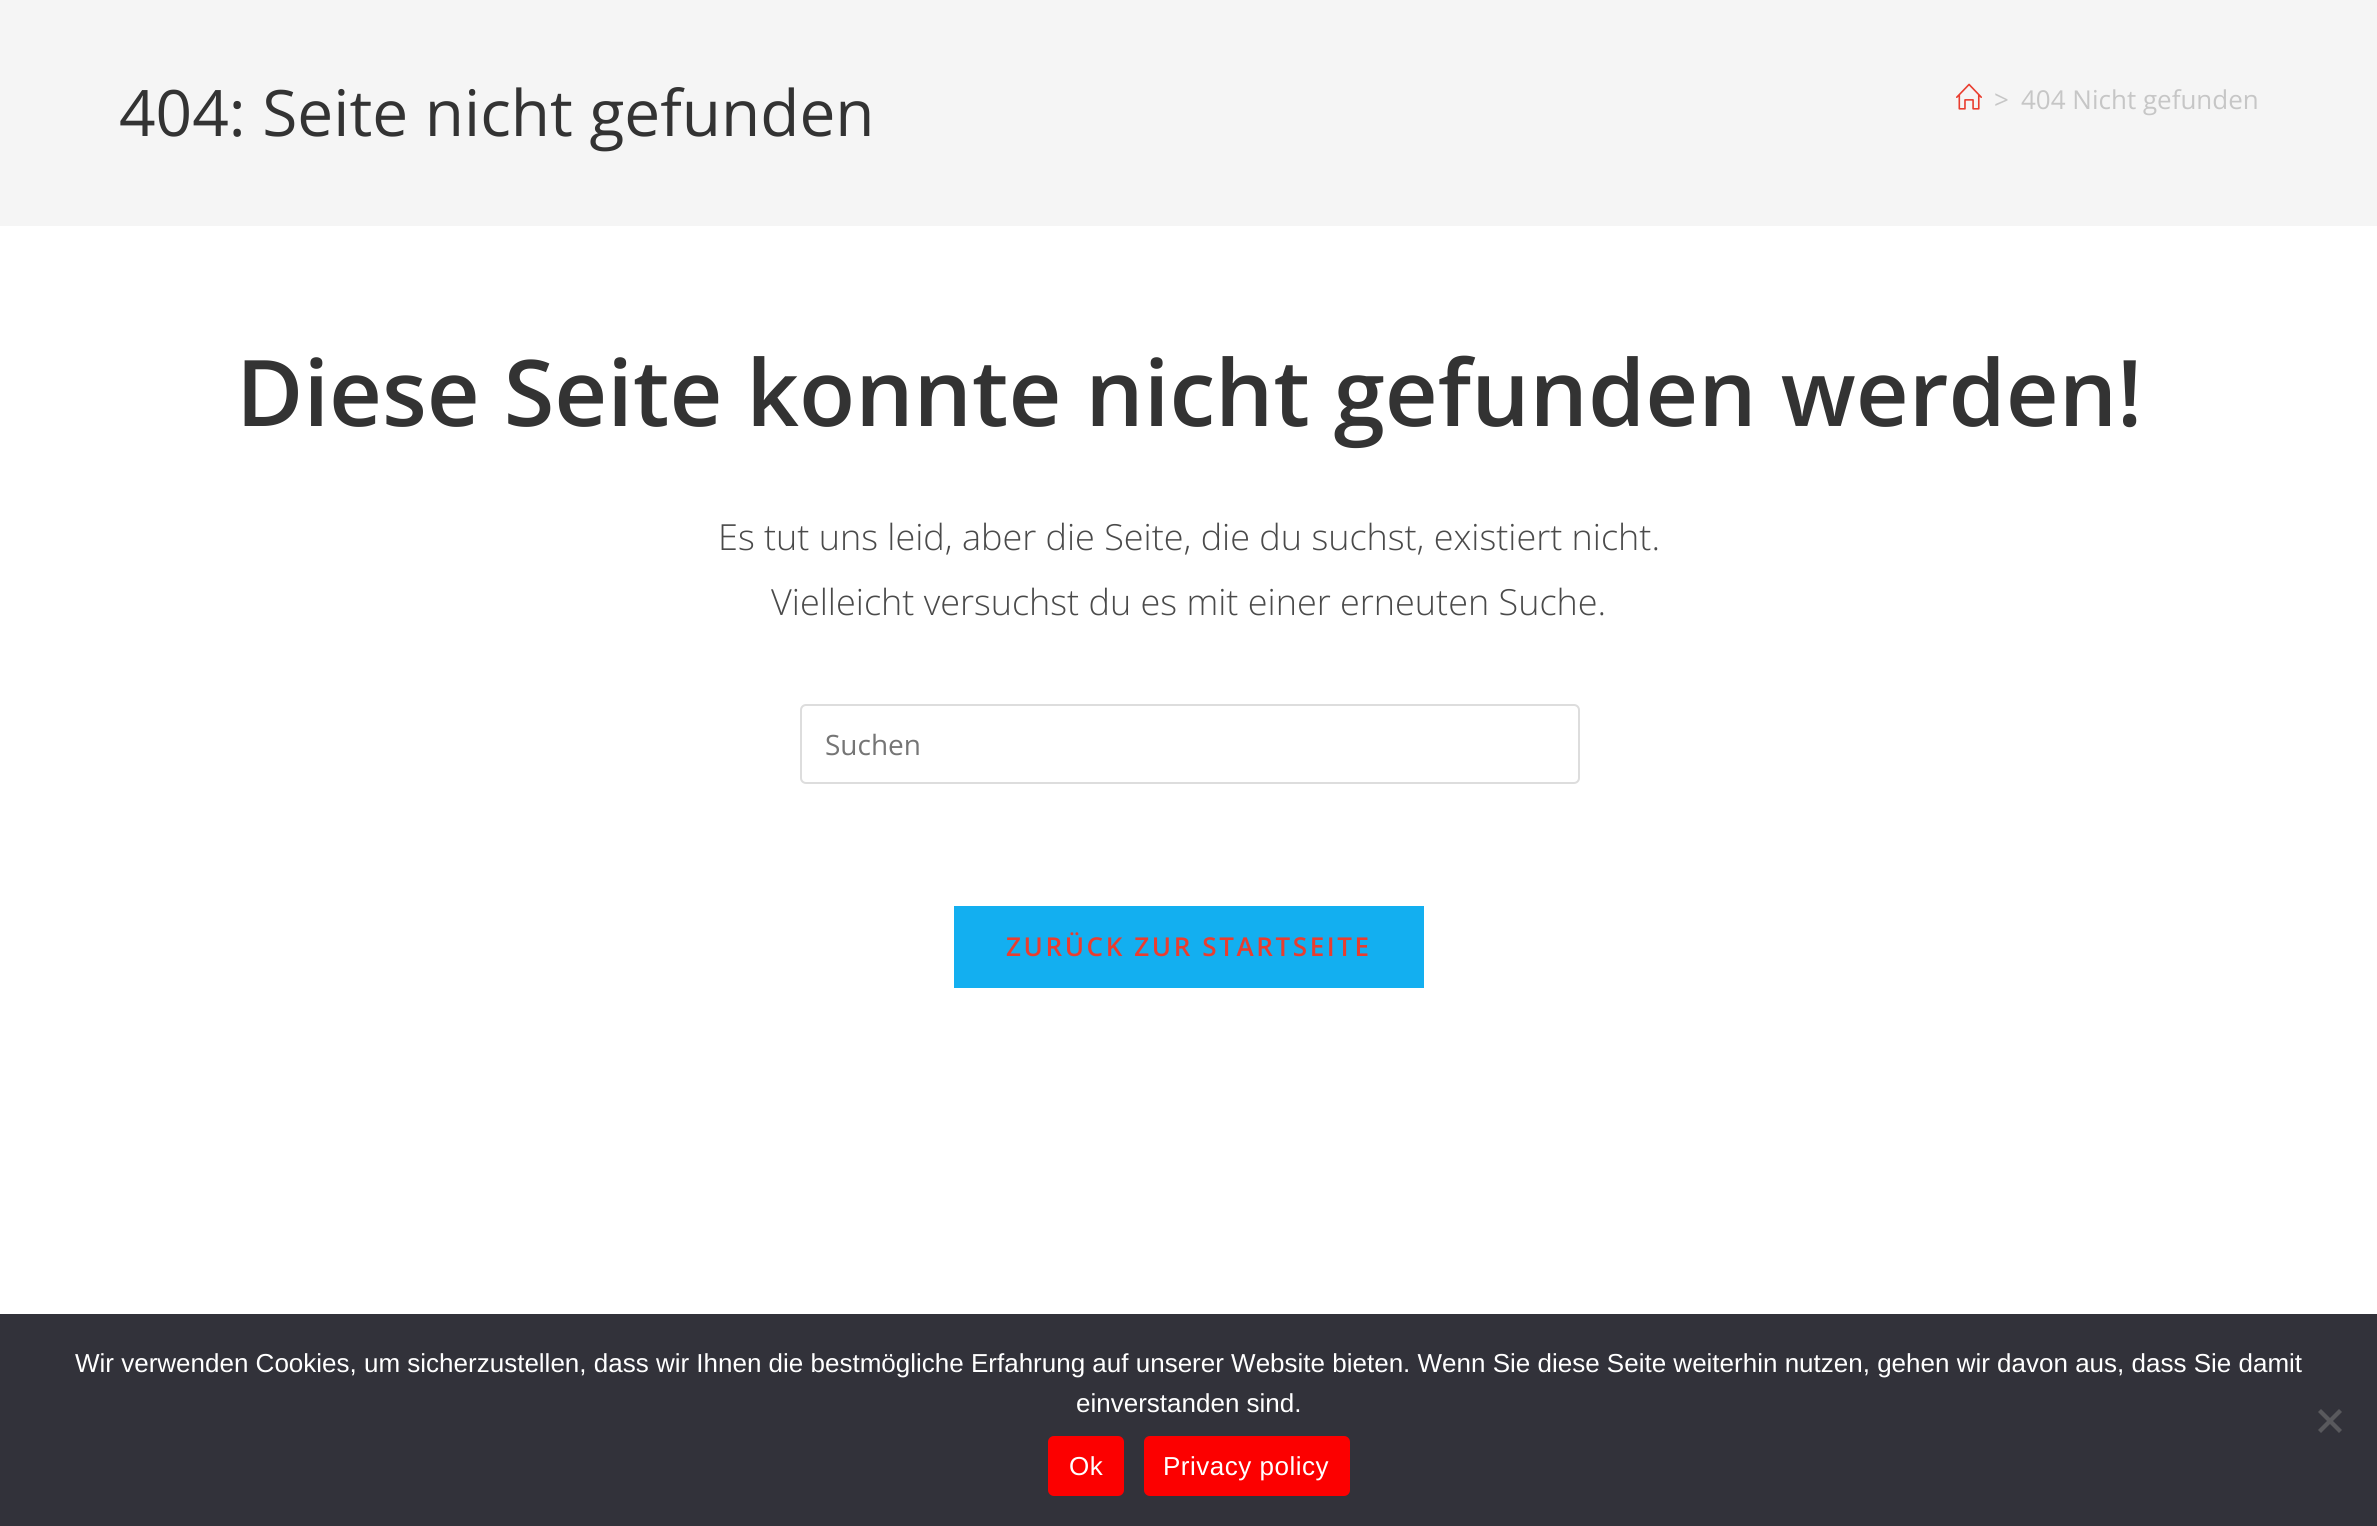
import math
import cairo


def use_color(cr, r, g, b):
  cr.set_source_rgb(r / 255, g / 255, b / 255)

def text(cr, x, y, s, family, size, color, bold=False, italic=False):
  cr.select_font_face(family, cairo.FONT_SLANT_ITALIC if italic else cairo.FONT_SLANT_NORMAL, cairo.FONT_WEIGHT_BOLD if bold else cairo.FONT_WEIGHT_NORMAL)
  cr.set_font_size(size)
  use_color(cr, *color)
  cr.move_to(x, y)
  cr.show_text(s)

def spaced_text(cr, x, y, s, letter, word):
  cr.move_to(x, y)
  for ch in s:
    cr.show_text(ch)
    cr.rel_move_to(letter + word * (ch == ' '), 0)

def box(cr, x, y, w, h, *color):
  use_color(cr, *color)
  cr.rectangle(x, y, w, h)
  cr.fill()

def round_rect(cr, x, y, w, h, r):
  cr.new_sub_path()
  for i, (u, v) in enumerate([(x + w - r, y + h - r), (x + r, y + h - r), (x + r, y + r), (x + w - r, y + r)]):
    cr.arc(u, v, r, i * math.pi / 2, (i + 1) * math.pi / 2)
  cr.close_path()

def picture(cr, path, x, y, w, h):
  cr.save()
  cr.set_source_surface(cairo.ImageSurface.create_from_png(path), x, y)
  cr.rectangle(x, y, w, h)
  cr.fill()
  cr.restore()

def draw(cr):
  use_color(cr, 255, 255, 255)
  cr.paint()
  box(cr, 0, 0, 2377, 226, 245, 245, 245)
  picture(cr, "img_01.png", 1956, 83, 26, 27)
  round_rect(cr, 801, 705, 778, 78, 5)
  use_color(cr, 221, 221, 221)
  cr.stroke()
  box(cr, 954, 906, 470, 82, 19, 175, 240)
  box(cr, 0, 1314, 2377, 212, 50, 50, 58)
  use_color(cr, 89, 89, 93)
  cr.new_path()
  cr.move_to(2339, 1409)
  cr.line_to(2342, 1412)
  cr.line_to(2321, 1433)
  cr.line_to(2318, 1430)
  cr.close_path()
  cr.fill()
  cr.new_path()
  cr.move_to(2318, 1412)
  cr.line_to(2321, 1409)
  cr.line_to(2342, 1430)
  cr.line_to(2339, 1433)
  cr.close_path()
  cr.fill()
  use_color(cr, 252, 0, 0)
  round_rect(cr, 1048, 1436, 76, 60, 6)
  cr.fill()
  round_rect(cr, 1144, 1436, 206, 60, 6)
  cr.fill()
  text(cr, 119, 136, "404: Seite nicht gefunden", "Open Sans", 64, (51, 51, 51))
  text(cr, 1994, 109, ">", "Open Sans", 26, (198, 198, 198))
  text(cr, 2021, 109, "404 Nicht gefunden", "Open Sans", 26, (198, 198, 198))
  text(cr, 236, 426, "Diese Seite konnte nicht gefunden werden!", "Open Sans SemiBold", 92, (51, 51, 51))
  text(cr, 718, 550, "Es tut uns leid, aber die Seite, die du suchst, existiert nicht.", "Open Sans Light", 36, (74, 74, 74))
  text(cr, 771, 615, "Vielleicht versuchst du es mit einer erneuten Suche.", "Open Sans Light", 36, (74, 74, 74))
  text(cr, 825, 755, "Suchen", "Open Sans", 28, (117, 117, 117))
  cr.select_font_face("Open Sans SemiBold")
  cr.set_font_size(26)
  use_color(cr, 233, 61, 47)
  spaced_text(cr, 1006, 956, "ZURÜCK ZUR STARTSEITE", 2.6, 0)
  text(cr, 75, 1372, "Wir verwenden Cookies, um sicherzustellen, dass wir Ihnen die bestmögliche Erfahrung auf unserer Website bieten. Wenn Sie diese Seite weiterhin nutzen, gehen wir davon aus, dass Sie damit", "Liberation Sans", 26, (255, 255, 255))
  text(cr, 1076, 1412, "einverstanden sind.", "Liberation Sans", 26, (255, 255, 255))
  spaced_text(cr, 1069, 1475, "Ok", 0.5, 0)
  spaced_text(cr, 1163, 1475, "Privacy policy", 0.5, 0)


surface = cairo.ImageSurface(cairo.FORMAT_RGB24, 2377, 1526)
cr = cairo.Context(surface)
options = cairo.FontOptions()
options.set_hint_metrics(cairo.HINT_METRICS_OFF)
options.set_hint_style(cairo.HINT_STYLE_NONE)
cr.set_font_options(options)
cr.set_miter_limit(4)
draw(cr)
surface.write_to_png("out.png")
